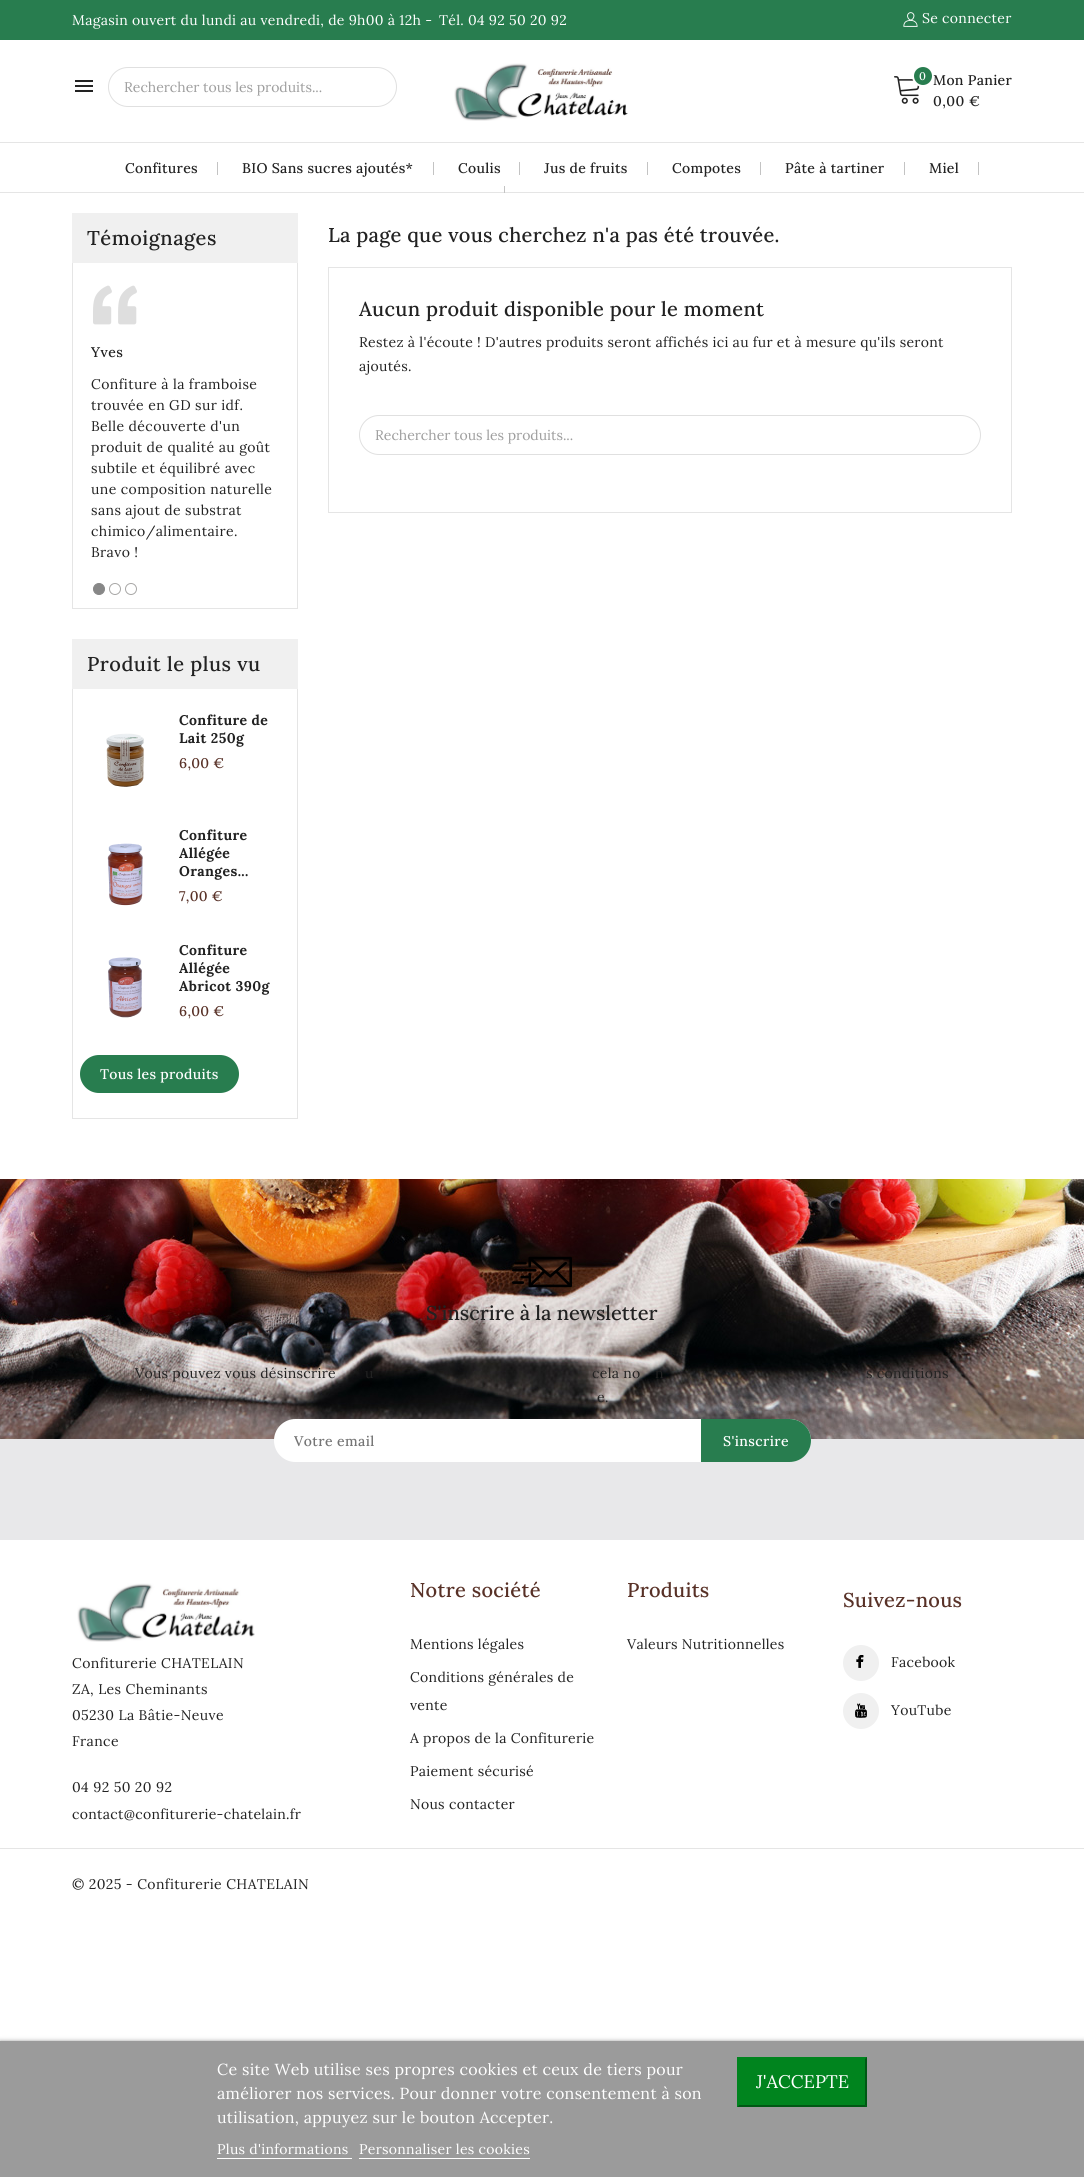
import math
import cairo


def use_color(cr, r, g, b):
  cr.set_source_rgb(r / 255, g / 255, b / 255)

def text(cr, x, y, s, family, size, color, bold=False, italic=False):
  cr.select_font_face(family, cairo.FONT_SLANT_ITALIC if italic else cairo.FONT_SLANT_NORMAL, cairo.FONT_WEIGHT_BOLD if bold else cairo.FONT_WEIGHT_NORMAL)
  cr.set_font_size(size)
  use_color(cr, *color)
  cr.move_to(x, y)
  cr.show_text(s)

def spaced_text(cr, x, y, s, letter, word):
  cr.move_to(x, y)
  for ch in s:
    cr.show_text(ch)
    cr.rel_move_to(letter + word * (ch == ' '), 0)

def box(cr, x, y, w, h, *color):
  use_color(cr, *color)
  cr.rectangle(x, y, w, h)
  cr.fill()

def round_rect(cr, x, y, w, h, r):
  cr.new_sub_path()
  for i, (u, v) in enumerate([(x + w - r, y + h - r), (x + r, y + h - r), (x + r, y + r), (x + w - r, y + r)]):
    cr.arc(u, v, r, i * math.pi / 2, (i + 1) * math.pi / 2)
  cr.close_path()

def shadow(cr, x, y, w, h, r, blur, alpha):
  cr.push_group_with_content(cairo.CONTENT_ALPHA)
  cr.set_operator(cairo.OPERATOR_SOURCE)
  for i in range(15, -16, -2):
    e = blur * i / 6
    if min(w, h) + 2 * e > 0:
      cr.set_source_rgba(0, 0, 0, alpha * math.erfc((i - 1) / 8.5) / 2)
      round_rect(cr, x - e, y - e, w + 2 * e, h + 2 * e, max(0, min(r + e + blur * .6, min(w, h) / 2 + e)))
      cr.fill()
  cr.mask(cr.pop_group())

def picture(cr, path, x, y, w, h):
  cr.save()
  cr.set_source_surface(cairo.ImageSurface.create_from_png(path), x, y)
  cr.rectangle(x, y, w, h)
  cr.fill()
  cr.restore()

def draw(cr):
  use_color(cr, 255, 255, 255)
  cr.paint()
  box(cr, 0, 0, 1084, 40, 40, 125, 79)
  picture(cr, "img_01.png", 903, 12, 15, 15)
  box(cr, 0, 142, 1084, 1, 229, 229, 229)
  picture(cr, "img_02.png", 75, 80, 18, 12)
  round_rect(cr, 108.5, 67.5, 288, 39, 19.5)
  use_color(cr, 224, 224, 224)
  cr.set_line_width(1)
  cr.stroke()
  picture(cr, "img_03.png", 454, 63, 174, 58)
  picture(cr, "img_04.png", 894, 76, 26, 28)
  use_color(cr, 40, 125, 79)
  cr.arc(923, 76, 10, 0, 2 * math.pi)
  cr.fill_preserve()
  use_color(cr, 255, 255, 255)
  cr.set_line_width(2)
  cr.stroke()
  box(cr, 0, 192, 1084, 1, 229, 229, 229)
  box(cr, 217, 162, 1, 13, 195, 195, 195)
  box(cr, 433, 162, 1, 13, 195, 195, 195)
  box(cr, 519, 162, 1, 13, 195, 195, 195)
  box(cr, 647, 162, 1, 13, 195, 195, 195)
  box(cr, 760, 162, 1, 13, 195, 195, 195)
  box(cr, 904, 162, 1, 13, 195, 195, 195)
  box(cr, 978, 162, 1, 13, 195, 195, 195)
  box(cr, 504, 186, 1, 13, 195, 195, 195)
  box(cr, 72, 213, 226, 50, 240, 240, 240)
  box(cr, 297, 263, 1, 346, 229, 229, 229)
  box(cr, 72, 608, 226, 1, 229, 229, 229)
  box(cr, 72, 263, 1, 346, 229, 229, 229)
  picture(cr, "img_05.png", 93, 285, 44, 40)
  use_color(cr, 135, 135, 135)
  cr.arc(99, 589, 5.5, 0, 2 * math.pi)
  cr.fill_preserve()
  cr.set_line_width(1)
  cr.stroke()
  cr.arc(115, 589, 5.5, 0, 2 * math.pi)
  use_color(cr, 168, 167, 166)
  cr.stroke()
  cr.arc(131, 589, 5.5, 0, 2 * math.pi)
  cr.stroke()
  box(cr, 72, 639, 226, 50, 240, 240, 240)
  box(cr, 297, 689, 1, 430, 229, 229, 229)
  box(cr, 72, 1118, 226, 1, 229, 229, 229)
  box(cr, 72, 689, 1, 430, 229, 229, 229)
  picture(cr, "img_06.png", 106, 733, 38, 54)
  picture(cr, "img_07.png", 107, 843, 36, 63)
  picture(cr, "img_08.png", 108, 957, 34, 61)
  use_color(cr, 40, 125, 79)
  round_rect(cr, 80, 1055, 159, 38, 19)
  cr.fill()
  use_color(cr, 255, 255, 255)
  round_rect(cr, 298, 193, 714, 330, 5)
  cr.fill()
  cr.rectangle(328.5, 267.5, 683, 245)
  use_color(cr, 229, 229, 229)
  cr.stroke()
  round_rect(cr, 359.5, 415.5, 621, 39, 19.5)
  use_color(cr, 224, 224, 224)
  cr.stroke()
  box(cr, 0, 1439, 1084, 101, 232, 232, 234)
  picture(cr, "img_09.png", 0, 1179, 1084, 260)
  picture(cr, "img_10.png", 512, 1256, 60, 32)
  use_color(cr, 255, 255, 255)
  round_rect(cr, 274, 1419, 537, 43, 21.5)
  cr.fill()
  use_color(cr, 40, 125, 79)
  cr.new_path()
  cr.move_to(701, 1419)
  cr.line_to(789.5, 1419)
  cr.curve_to(801.5, 1419, 811, 1428.5, 811, 1440.5)
  cr.curve_to(811, 1452.5, 801.5, 1462, 789.5, 1462)
  cr.line_to(701, 1462)
  cr.close_path()
  cr.fill()
  picture(cr, "img_11.png", 77, 1583, 178, 59)
  use_color(cr, 240, 240, 240)
  cr.arc(861, 1663, 18, 0, 2 * math.pi)
  cr.fill()
  picture(cr, "img_12.png", 856, 1655, 8, 13)
  cr.arc(861, 1711, 18, 0, 2 * math.pi)
  cr.fill()
  picture(cr, "img_13.png", 855, 1703, 12, 15)
  use_color(cr, 112, 112, 112)
  shadow(cr, 0, 2042, 1084, 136, 0, 2.5, 1)
  box(cr, 0, 2041, 1084, 136, 155, 155, 155)
  box(cr, 217, 2158, 135, 1, 255, 255, 255)
  box(cr, 359, 2158, 171, 1, 255, 255, 255)
  box(cr, 737, 2057, 130, 50, 0, 132, 30)
  use_color(cr, 0, 88, 20)
  cr.new_path()
  cr.move_to(867, 2057)
  cr.line_to(867, 2107)
  cr.line_to(865, 2105)
  cr.line_to(865, 2059)
  cr.close_path()
  cr.fill()
  cr.new_path()
  cr.move_to(867, 2107)
  cr.line_to(737, 2107)
  cr.line_to(739, 2105)
  cr.line_to(865, 2105)
  cr.close_path()
  cr.fill()
  use_color(cr, 0, 132, 30)
  cr.new_path()
  cr.move_to(737, 2107)
  cr.line_to(737, 2057)
  cr.line_to(739, 2059)
  cr.line_to(739, 2105)
  cr.close_path()
  cr.fill()
  box(cr, 0, 1848, 1084, 1, 229, 229, 229)
  cr.select_font_face("Lora")
  cr.set_font_size(14)
  use_color(cr, 255, 255, 255)
  spaced_text(cr, 72, 25, "Magasin ouvert du lundi au vendredi, de 9h00 à 12h -", 0.3, 0)
  spaced_text(cr, 439, 25, "Tél. 04 92 50 20 92", 0.3, 0)
  spaced_text(cr, 922, 23, "Se connecter", 0.3, 0)
  text(cr, 124, 92, "Rechercher tous les produits...", "Lora", 14, (158, 158, 158))
  cr.select_font_face("Lora Medium")
  cr.set_font_size(11)
  use_color(cr, 255, 255, 255)
  spaced_text(cr, 919, 80, "0", 0.3, 0)
  cr.set_font_size(14)
  use_color(cr, 34, 34, 34)
  spaced_text(cr, 933, 85, "Mon Panier", 0.3, 0)
  spaced_text(cr, 933, 106, "0,00 €", 0.5, 0)
  spaced_text(cr, 125, 173, "Confitures", 0.3, 0)
  spaced_text(cr, 242, 173, "BIO Sans sucres ajoutés*", 0.3, 0)
  spaced_text(cr, 458, 173, "Coulis", 0.3, 0)
  spaced_text(cr, 544, 173, "Jus de fruits", 0.3, 0)
  spaced_text(cr, 672, 173, "Compotes", 0.3, 0)
  spaced_text(cr, 785, 173, "Pâte à tartiner", 0.3, 0)
  spaced_text(cr, 929, 173, "Miel", 0.3, 0)
  cr.set_font_size(20)
  spaced_text(cr, 87, 245, "Témoignages", 0.5, 0)
  cr.set_font_size(14)
  spaced_text(cr, 91, 357, "Yves", 0.5, 0)
  cr.select_font_face("Lora")
  spaced_text(cr, 91, 389, "Confiture à la framboise", 0.4, 0)
  spaced_text(cr, 91, 410, "trouvée en GD sur idf.", 0.4, 0)
  spaced_text(cr, 91, 431, "Belle découverte d'un", 0.4, 0)
  spaced_text(cr, 91, 452, "produit de qualité au goût", 0.4, 0)
  spaced_text(cr, 91, 473, "subtile et équilibré avec", 0.4, 0)
  spaced_text(cr, 91, 494, "une composition naturelle", 0.4, 0)
  spaced_text(cr, 91, 515, "sans ajout de substrat", 0.4, 0)
  spaced_text(cr, 91, 536, "chimico/alimentaire.", 0.4, 0)
  spaced_text(cr, 91, 557, "Bravo !", 0.4, 0)
  cr.select_font_face("Lora Medium")
  cr.set_font_size(20)
  spaced_text(cr, 87, 671, "Produit le plus vu", 0.5, 0)
  cr.select_font_face("Lora", cairo.FONT_SLANT_NORMAL, cairo.FONT_WEIGHT_BOLD)
  cr.set_font_size(14)
  spaced_text(cr, 179, 725, "Confiture de", 0.4, 0)
  spaced_text(cr, 179, 743, "Lait 250g", 0.4, 0)
  cr.select_font_face("Lora Medium")
  use_color(cr, 88, 49, 39)
  spaced_text(cr, 179, 768, "6,00 €", 0.3, 0)
  cr.select_font_face("Lora", cairo.FONT_SLANT_NORMAL, cairo.FONT_WEIGHT_BOLD)
  use_color(cr, 34, 34, 34)
  spaced_text(cr, 179, 840, "Confiture", 0.4, 0)
  spaced_text(cr, 179, 858, "Allégée", 0.4, 0)
  spaced_text(cr, 179, 876, "Oranges...", 0.4, 0)
  cr.select_font_face("Lora Medium")
  use_color(cr, 88, 49, 39)
  spaced_text(cr, 179, 901, "7,00 €", 0.3, 0)
  cr.select_font_face("Lora", cairo.FONT_SLANT_NORMAL, cairo.FONT_WEIGHT_BOLD)
  use_color(cr, 34, 34, 34)
  spaced_text(cr, 179, 955, "Confiture", 0.4, 0)
  spaced_text(cr, 179, 973, "Allégée", 0.4, 0)
  spaced_text(cr, 179, 991, "Abricot 390g", 0.4, 0)
  cr.select_font_face("Lora Medium")
  use_color(cr, 88, 49, 39)
  spaced_text(cr, 179, 1016, "6,00 €", 0.3, 0)
  use_color(cr, 255, 255, 255)
  spaced_text(cr, 100, 1079, "Tous les produits", 0.3, 0)
  cr.set_font_size(20)
  use_color(cr, 34, 34, 34)
  spaced_text(cr, 328, 242, "La page que vous cherchez n'a pas été trouvée.", 0.3, 0)
  spaced_text(cr, 359, 316, "Aucun produit disponible pour le moment", 0.3, 0)
  cr.select_font_face("Lora")
  cr.set_font_size(14)
  spaced_text(cr, 359, 347, "Restez à l'écoute ! D'autres produits seront affichés ici au fur et à mesure qu'ils seront", 0.3, 0)
  spaced_text(cr, 359, 371, "ajoutés.", 0.3, 0)
  text(cr, 375, 440, "Rechercher tous les produits...", "Lora", 14, (158, 158, 158))
  text(cr, 426, 1320, "S'inscrire à la newsletter", "Lora Medium", 20, (34, 34, 34))
  cr.select_font_face("Lora")
  cr.set_font_size(14)
  spaced_text(cr, 135, 1378, "Vous pouvez vous désinscrire", 0.3, 0)
  spaced_text(cr, 365, 1378, "u", 0.3, 0)
  spaced_text(cr, 592, 1378, "cela no", 0.3, 0)
  spaced_text(cr, 655, 1378, "n", 0.3, 0)
  spaced_text(cr, 866, 1378, "s conditions", 0.3, 0)
  spaced_text(cr, 597, 1402, "e.", 0.3, 0)
  cr.select_font_face("Lora Medium")
  use_color(cr, 117, 117, 117)
  spaced_text(cr, 294, 1446, "Votre email", 0.4, 0)
  use_color(cr, 255, 255, 255)
  spaced_text(cr, 723, 1446, "S'inscrire", 0.4, 0)
  cr.set_font_size(20)
  use_color(cr, 88, 49, 39)
  spaced_text(cr, 410, 1597, "Notre société", 0.3, 0)
  cr.select_font_face("Lora")
  cr.set_font_size(14)
  use_color(cr, 34, 34, 34)
  spaced_text(cr, 410, 1649, "Mentions légales", 0.3, 0)
  spaced_text(cr, 410, 1682, "Conditions générales de", 0.3, 0)
  spaced_text(cr, 410, 1710, "vente", 0.3, 0)
  spaced_text(cr, 410, 1743, "A propos de la Confiturerie", 0.3, 0)
  spaced_text(cr, 410, 1776, "Paiement sécurisé", 0.3, 0)
  spaced_text(cr, 410, 1809, "Nous contacter", 0.3, 0)
  cr.select_font_face("Lora Medium")
  cr.set_font_size(20)
  use_color(cr, 88, 49, 39)
  spaced_text(cr, 627, 1597, "Produits", 0.3, 0)
  cr.select_font_face("Lora")
  cr.set_font_size(14)
  use_color(cr, 34, 34, 34)
  spaced_text(cr, 627, 1649, "Valeurs Nutritionnelles", 0.3, 0)
  cr.select_font_face("Lora Medium")
  cr.set_font_size(20)
  use_color(cr, 88, 49, 39)
  spaced_text(cr, 843, 1607, "Suivez-nous", 0.3, 0)
  cr.select_font_face("Lora")
  cr.set_font_size(14)
  use_color(cr, 34, 34, 34)
  spaced_text(cr, 891, 1667, "Facebook", 0.3, 0)
  spaced_text(cr, 891, 1715, "YouTube", 0.3, 0)
  spaced_text(cr, 72, 1668, "Confiturerie CHATELAIN", 0.4, 0)
  spaced_text(cr, 72, 1694, "ZA, Les Cheminants", 0.4, 0)
  spaced_text(cr, 72, 1720, "05230 La Bâtie-Neuve", 0.4, 0)
  spaced_text(cr, 72, 1746, "France", 0.4, 0)
  spaced_text(cr, 72, 1792, "04 92 50 20 92", 0.4, 0)
  spaced_text(cr, 72, 1819, "contact@confiturerie-chatelain.fr", 0.3, 0)
  cr.set_font_size(16)
  use_color(cr, 255, 255, 255)
  spaced_text(cr, 217, 2075, "Ce site Web utilise ses propres cookies et ceux de tiers pour", 0.3, 0)
  spaced_text(cr, 217, 2099, "améliorer nos services. Pour donner votre consentement à son", 0.3, 0)
  spaced_text(cr, 217, 2123, "utilisation, appuyez sur le bouton Accepter.", 0.3, 0)
  cr.set_font_size(14)
  spaced_text(cr, 217, 2154, "Plus d'informations", 0.3, 0)
  spaced_text(cr, 359, 2154, "Personnaliser les cookies", 0.3, 0)
  text(cr, 756, 2088, "J'ACCEPTE", "Lora", 18.25, (255, 255, 255))
  cr.set_font_size(14)
  use_color(cr, 34, 34, 34)
  spaced_text(cr, 72, 1889, "© 2025 - Confiturerie CHATELAIN", 0.4, 0)


surface = cairo.ImageSurface(cairo.FORMAT_RGB24, 1084, 2177)
cr = cairo.Context(surface)
options = cairo.FontOptions()
options.set_hint_metrics(cairo.HINT_METRICS_OFF)
options.set_hint_style(cairo.HINT_STYLE_NONE)
cr.set_font_options(options)
cr.set_miter_limit(4)
draw(cr)
surface.write_to_png("out.png")
